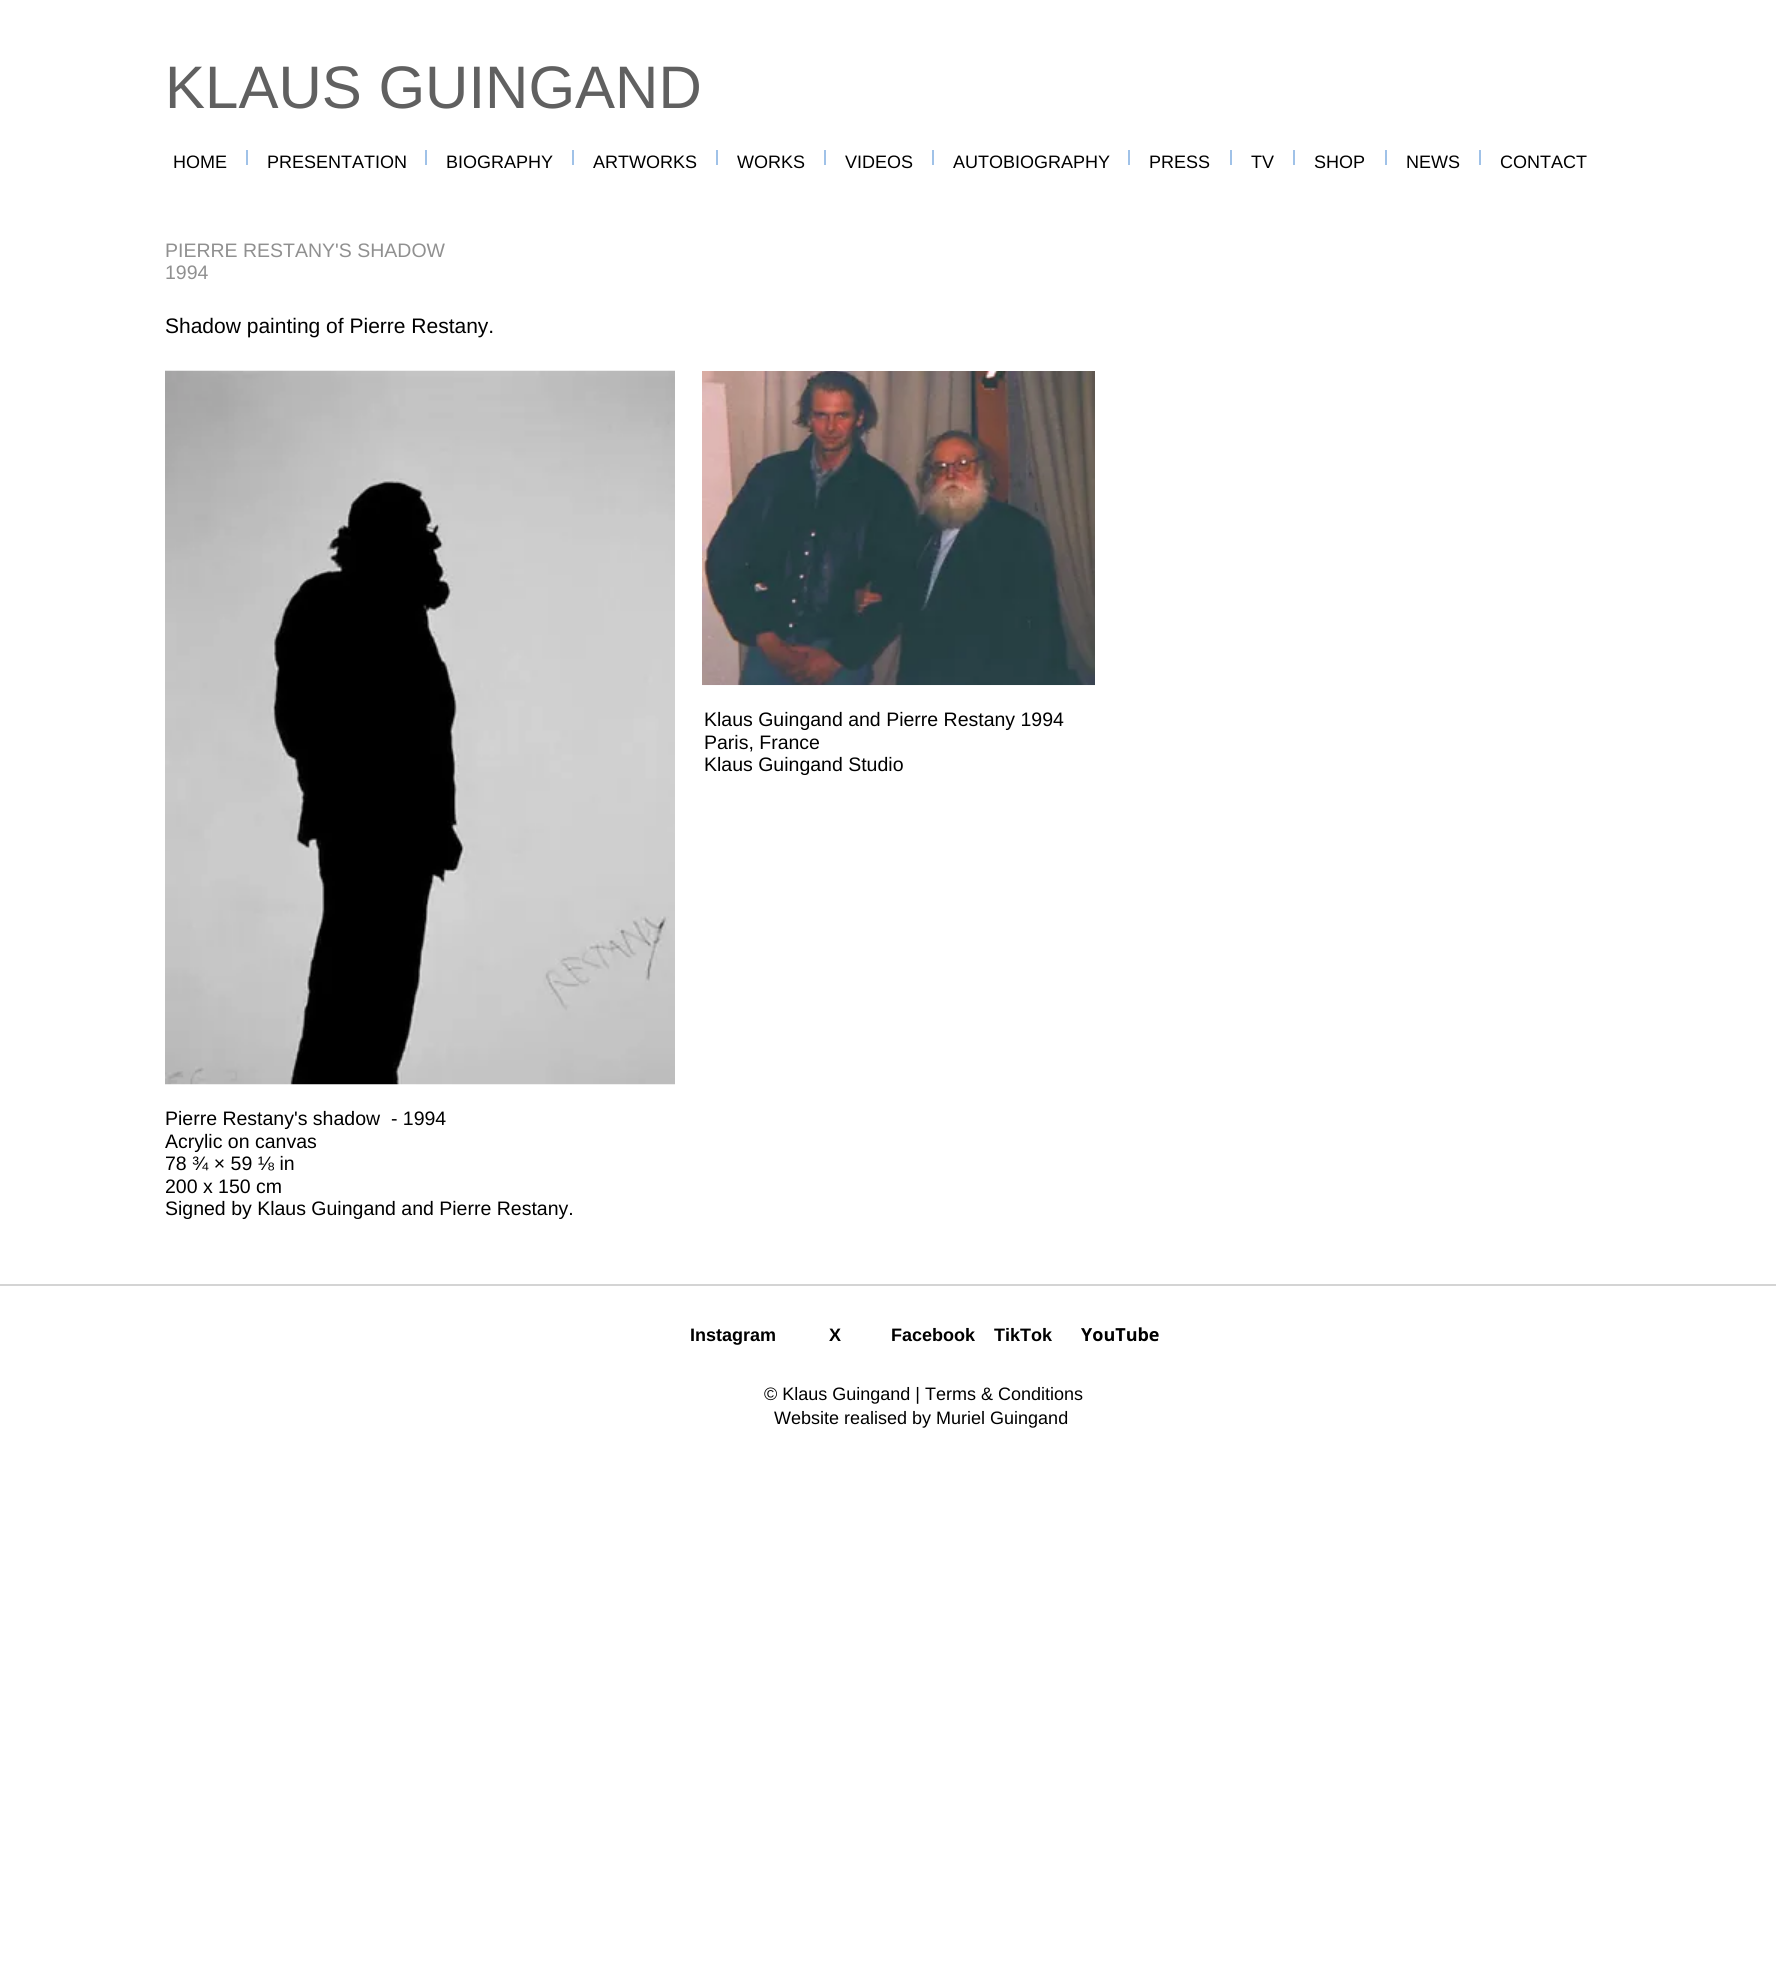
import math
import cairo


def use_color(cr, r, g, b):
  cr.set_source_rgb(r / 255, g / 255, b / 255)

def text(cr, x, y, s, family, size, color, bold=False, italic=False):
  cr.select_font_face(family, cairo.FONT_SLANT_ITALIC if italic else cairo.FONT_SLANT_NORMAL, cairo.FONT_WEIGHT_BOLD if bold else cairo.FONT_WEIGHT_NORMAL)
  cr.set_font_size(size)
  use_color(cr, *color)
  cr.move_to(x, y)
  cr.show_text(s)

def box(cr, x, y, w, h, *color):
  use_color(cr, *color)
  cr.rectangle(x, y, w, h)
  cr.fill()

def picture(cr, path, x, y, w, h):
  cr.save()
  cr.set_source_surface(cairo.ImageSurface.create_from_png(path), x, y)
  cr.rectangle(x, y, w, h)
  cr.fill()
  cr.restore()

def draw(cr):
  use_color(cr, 255, 255, 255)
  cr.paint()
  box(cr, 246, 150, 2, 15, 160, 194, 232)
  box(cr, 425, 150, 2, 15, 160, 194, 232)
  box(cr, 572, 150, 2, 15, 160, 194, 232)
  box(cr, 716, 150, 2, 15, 160, 194, 232)
  box(cr, 824, 150, 2, 15, 160, 194, 232)
  box(cr, 932, 150, 2, 15, 160, 194, 232)
  box(cr, 1128, 150, 2, 15, 160, 194, 232)
  box(cr, 1230, 150, 2, 15, 160, 194, 232)
  box(cr, 1293, 150, 2, 15, 160, 194, 232)
  box(cr, 1385, 150, 2, 15, 160, 194, 232)
  box(cr, 1479, 150, 2, 15, 160, 194, 232)
  picture(cr, "img_01.png", 165, 370, 510, 715)
  picture(cr, "img_02.png", 702, 371, 393, 315)
  box(cr, 0, 1284, 1776, 2, 212, 212, 212)
  text(cr, 165, 108, "KLAUS GUINGAND", "Liberation Sans", 60, (96, 96, 96))
  text(cr, 173, 168, "HOME", "Liberation Sans", 18, (0, 0, 0))
  text(cr, 267, 168, "PRESENTATION", "Liberation Sans", 18, (0, 0, 0))
  text(cr, 446, 168, "BIOGRAPHY", "Liberation Sans", 18, (0, 0, 0))
  text(cr, 593, 168, "ARTWORKS", "Liberation Sans", 18, (0, 0, 0))
  text(cr, 737, 168, "WORKS", "Liberation Sans", 18, (0, 0, 0))
  text(cr, 845, 168, "VIDEOS", "Liberation Sans", 18, (0, 0, 0))
  text(cr, 953, 168, "AUTOBIOGRAPHY", "Liberation Sans", 18, (0, 0, 0))
  text(cr, 1149, 168, "PRESS", "Liberation Sans", 18, (0, 0, 0))
  text(cr, 1251, 168, "TV", "Liberation Sans", 18, (0, 0, 0))
  text(cr, 1314, 168, "SHOP", "Liberation Sans", 18, (0, 0, 0))
  text(cr, 1406, 168, "NEWS", "Liberation Sans", 18, (0, 0, 0))
  text(cr, 1500, 168, "CONTACT", "Liberation Sans", 18, (0, 0, 0))
  text(cr, 165, 257, "PIERRE RESTANY'S SHADOW", "Liberation Sans", 19.5, (144, 144, 144))
  text(cr, 165, 279, "1994", "Liberation Sans", 19.5, (144, 144, 144))
  text(cr, 165, 333, "Shadow painting of Pierre Restany.", "Liberation Sans", 21, (0, 0, 0))
  text(cr, 704, 726, "Klaus Guingand and Pierre Restany 1994", "Liberation Sans", 19.5, (0, 0, 0))
  text(cr, 704, 749, "Paris, France", "Liberation Sans", 19.5, (0, 0, 0))
  text(cr, 704, 771, "Klaus Guingand Studio", "Liberation Sans", 19.5, (0, 0, 0))
  text(cr, 165, 1125, "Pierre Restany's shadow  - 1994", "Liberation Sans", 19.5, (0, 0, 0))
  text(cr, 165, 1148, "Acrylic on canvas", "Liberation Sans", 19.5, (0, 0, 0))
  text(cr, 165, 1170, "78 ¾ × 59 ⅛ in", "Liberation Sans", 19.5, (0, 0, 0))
  text(cr, 165, 1193, "200 x 150 cm", "Liberation Sans", 19.5, (0, 0, 0))
  text(cr, 165, 1215, "Signed by Klaus Guingand and Pierre Restany.", "Liberation Sans", 19.5, (0, 0, 0))
  text(cr, 690, 1341, "Instagram", "Liberation Sans", 18, (0, 0, 0), bold=True)
  text(cr, 829, 1341, "X", "Liberation Sans", 18, (0, 0, 0), bold=True)
  text(cr, 891, 1341, "Facebook", "Liberation Sans", 18, (0, 0, 0), bold=True)
  text(cr, 994, 1341, "TikTok", "Liberation Sans", 18, (0, 0, 0), bold=True)
  text(cr, 1081, 1341, "YouTube", "Open Sans", 18, (0, 0, 0), bold=True)
  text(cr, 764, 1400, "© Klaus Guingand | Terms & Conditions", "Liberation Sans", 18, (0, 0, 0))
  text(cr, 774, 1424, "Website realised by Muriel Guingand", "Liberation Sans", 18, (0, 0, 0))


surface = cairo.ImageSurface(cairo.FORMAT_RGB24, 1776, 1970)
cr = cairo.Context(surface)
options = cairo.FontOptions()
options.set_hint_metrics(cairo.HINT_METRICS_OFF)
options.set_hint_style(cairo.HINT_STYLE_NONE)
cr.set_font_options(options)
cr.set_miter_limit(4)
draw(cr)
surface.write_to_png("out.png")
